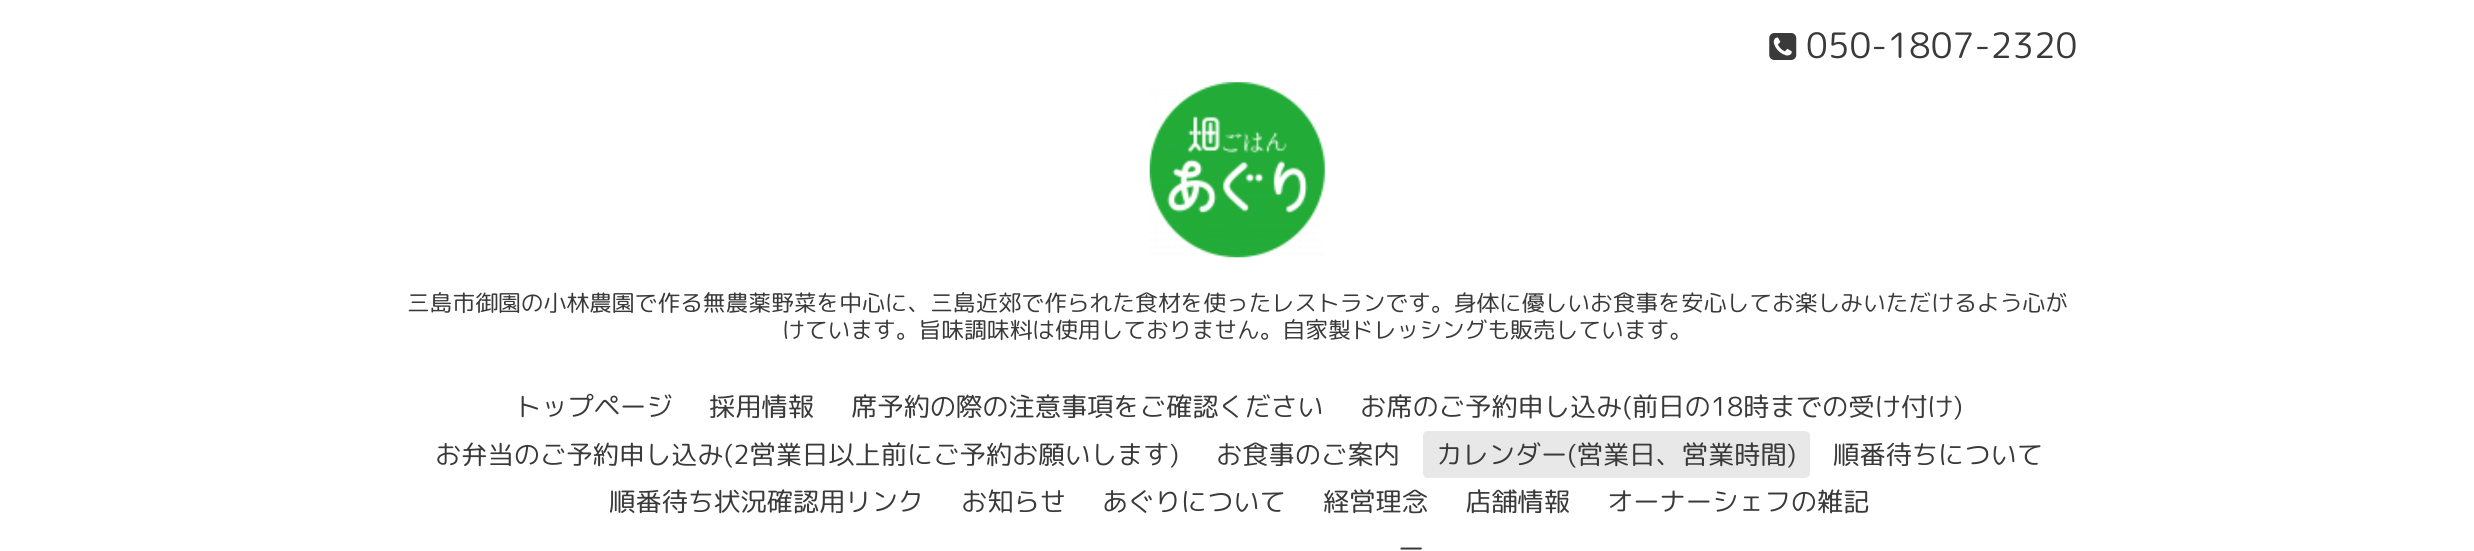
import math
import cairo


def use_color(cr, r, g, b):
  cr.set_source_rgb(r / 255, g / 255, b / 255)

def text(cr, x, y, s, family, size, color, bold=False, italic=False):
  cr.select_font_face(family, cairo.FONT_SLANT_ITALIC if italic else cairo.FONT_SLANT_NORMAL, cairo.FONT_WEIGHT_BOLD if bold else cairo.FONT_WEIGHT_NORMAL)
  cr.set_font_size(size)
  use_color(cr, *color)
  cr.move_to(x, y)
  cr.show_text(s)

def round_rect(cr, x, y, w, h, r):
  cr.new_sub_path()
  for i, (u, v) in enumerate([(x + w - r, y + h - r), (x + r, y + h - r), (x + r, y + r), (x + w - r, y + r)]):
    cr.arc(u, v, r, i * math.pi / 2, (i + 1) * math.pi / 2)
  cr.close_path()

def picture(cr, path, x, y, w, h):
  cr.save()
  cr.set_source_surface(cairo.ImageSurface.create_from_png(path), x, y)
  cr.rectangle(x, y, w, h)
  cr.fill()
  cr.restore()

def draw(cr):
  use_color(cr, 255, 255, 255)
  cr.paint()
  picture(cr, "img_01.png", 1769, 33, 28, 27)
  picture(cr, "img_02.png", 1149, 82, 176, 176)
  use_color(cr, 232, 232, 232)
  round_rect(cr, 1423, 431, 387, 47, 5)
  cr.fill()
  text(cr, 1806, 58, "050-1807-2320", "Rounded Mplus 1c", 35, (58, 58, 58))
  text(cr, 407, 311, "三島市御園の小林農園で作る無農薬野菜を中心に、三島近郊で作られた食材を使ったレストランです。身体に優しいお食事を安心してお楽しみいただけるよう心が", "Rounded Mplus 1c", 22.75, (58, 58, 58))
  text(cr, 782, 338, "けています。旨味調味料は使用しておりません。自家製ドレッシングも販売しています。", "Rounded Mplus 1c", 22.75, (58, 58, 58))
  text(cr, 515, 416, "トップページ", "Rounded Mplus 1c", 26.25, (58, 58, 58))
  text(cr, 709, 416, "採用情報", "Rounded Mplus 1c", 26.25, (58, 58, 58))
  text(cr, 851, 416, "席予約の際の注意事項をご確認ください", "Rounded Mplus 1c", 26.25, (58, 58, 58))
  text(cr, 1360, 416, "お席のご予約申し込み(前日の18時までの受け付け)", "Rounded Mplus 1c", 26.25, (58, 58, 58))
  text(cr, 435, 464, "お弁当のご予約申し込み(2営業日以上前にご予約お願いします)", "Rounded Mplus 1c", 26.25, (58, 58, 58))
  text(cr, 1216, 464, "お食事のご案内", "Rounded Mplus 1c", 26.25, (58, 58, 58))
  text(cr, 1436, 464, "カレンダー(営業日、営業時間)", "Rounded Mplus 1c", 26.25, (58, 58, 58))
  text(cr, 1833, 464, "順番待ちについて", "Rounded Mplus 1c", 26.25, (58, 58, 58))
  text(cr, 609, 511, "順番待ち状況確認用リンク", "Rounded Mplus 1c", 26.25, (58, 58, 58))
  text(cr, 961, 511, "お知らせ", "Rounded Mplus 1c", 26.25, (58, 58, 58))
  text(cr, 1102, 511, "あぐりについて", "Rounded Mplus 1c", 26.25, (58, 58, 58))
  text(cr, 1323, 511, "経営理念", "Rounded Mplus 1c", 26.25, (58, 58, 58))
  text(cr, 1465, 511, "店舗情報", "Rounded Mplus 1c", 26.25, (58, 58, 58))
  text(cr, 1607, 511, "オーナーシェフの雑記", "Rounded Mplus 1c", 26.25, (58, 58, 58))
  text(cr, 1398, 558, "ー", "Rounded Mplus 1c", 26.25, (58, 58, 58))


surface = cairo.ImageSurface(cairo.FORMAT_RGB24, 2474, 551)
cr = cairo.Context(surface)
options = cairo.FontOptions()
options.set_hint_metrics(cairo.HINT_METRICS_OFF)
options.set_hint_style(cairo.HINT_STYLE_NONE)
cr.set_font_options(options)
cr.set_miter_limit(4)
draw(cr)
surface.write_to_png("out.png")
